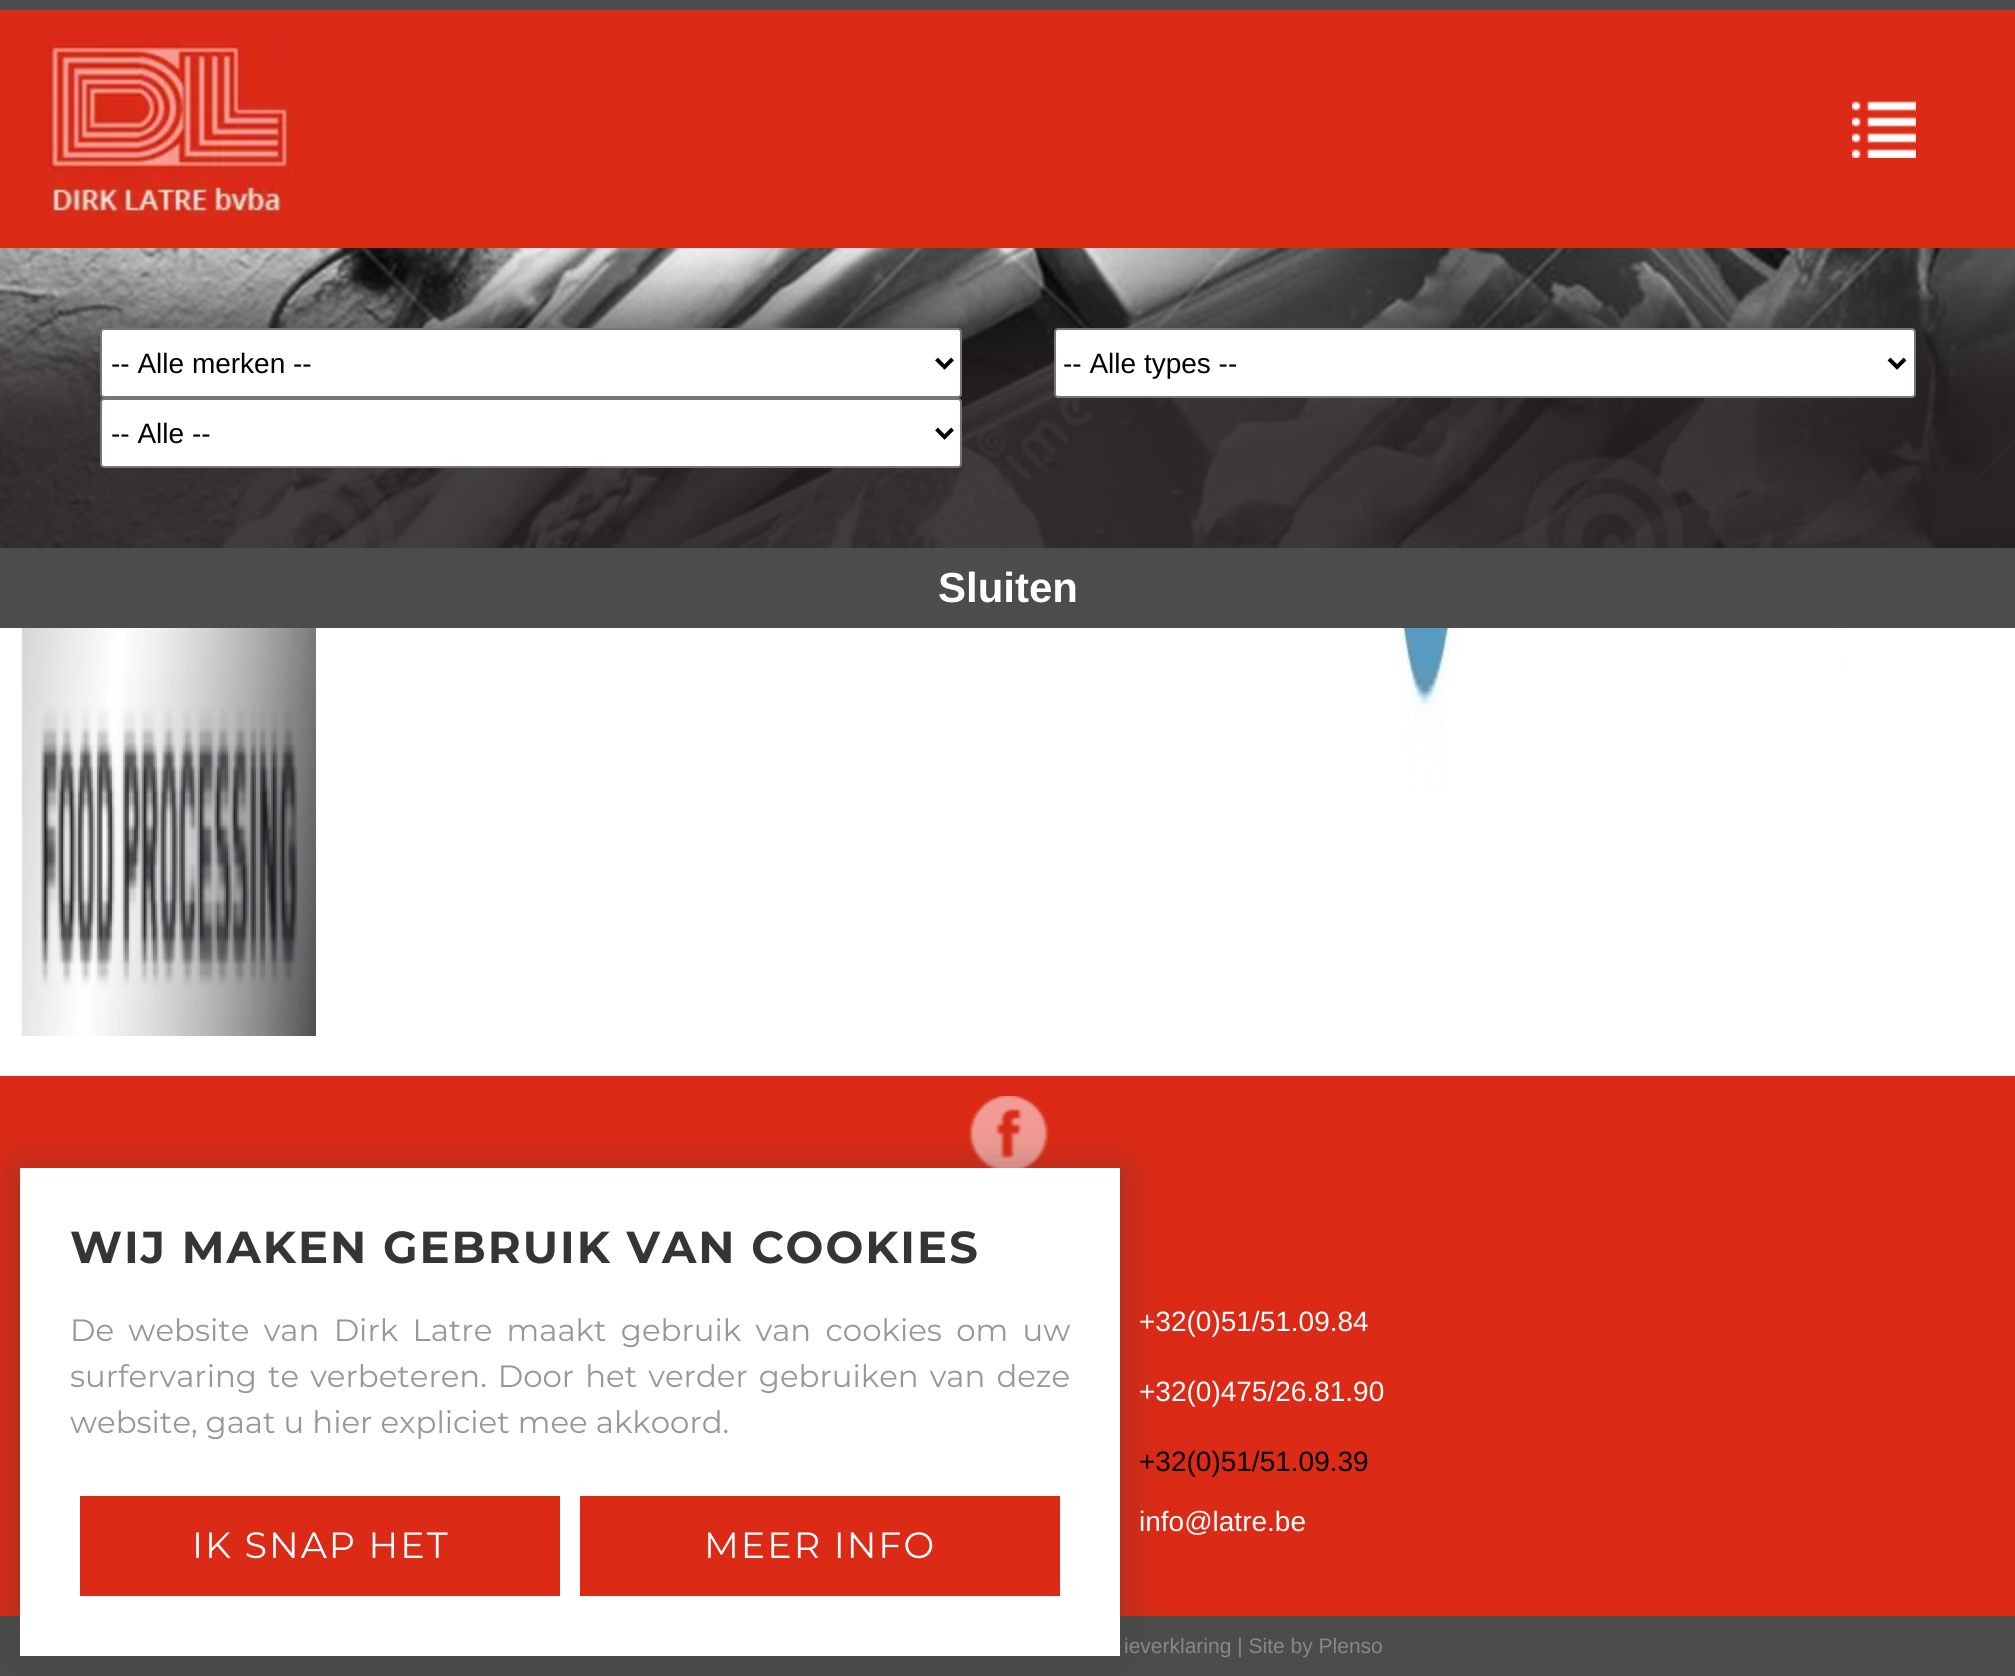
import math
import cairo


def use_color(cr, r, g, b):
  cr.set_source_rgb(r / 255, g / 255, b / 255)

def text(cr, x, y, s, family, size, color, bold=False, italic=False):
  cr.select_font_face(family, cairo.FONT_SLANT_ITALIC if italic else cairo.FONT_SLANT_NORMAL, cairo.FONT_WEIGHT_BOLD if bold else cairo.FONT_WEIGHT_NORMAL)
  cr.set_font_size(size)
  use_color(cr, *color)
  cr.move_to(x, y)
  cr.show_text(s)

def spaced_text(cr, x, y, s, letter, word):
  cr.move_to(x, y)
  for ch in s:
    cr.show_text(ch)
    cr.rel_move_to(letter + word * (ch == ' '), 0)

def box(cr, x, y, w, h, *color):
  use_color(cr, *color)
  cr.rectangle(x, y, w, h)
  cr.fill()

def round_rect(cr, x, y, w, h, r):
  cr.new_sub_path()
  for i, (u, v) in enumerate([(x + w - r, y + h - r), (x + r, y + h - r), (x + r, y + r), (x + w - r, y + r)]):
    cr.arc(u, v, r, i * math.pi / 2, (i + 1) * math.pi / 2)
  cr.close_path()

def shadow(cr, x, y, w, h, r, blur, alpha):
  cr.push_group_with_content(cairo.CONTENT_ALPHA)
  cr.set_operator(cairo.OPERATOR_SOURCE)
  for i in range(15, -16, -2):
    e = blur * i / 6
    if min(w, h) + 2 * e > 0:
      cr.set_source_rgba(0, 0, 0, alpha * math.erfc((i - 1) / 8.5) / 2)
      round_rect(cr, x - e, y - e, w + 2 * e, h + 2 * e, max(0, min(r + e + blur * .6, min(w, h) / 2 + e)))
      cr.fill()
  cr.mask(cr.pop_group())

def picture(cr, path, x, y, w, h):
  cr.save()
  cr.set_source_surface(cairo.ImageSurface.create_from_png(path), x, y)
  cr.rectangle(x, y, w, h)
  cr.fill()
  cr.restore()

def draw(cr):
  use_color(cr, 255, 255, 255)
  cr.paint()
  box(cr, 0, 10, 2015, 238, 219, 42, 22)
  box(cr, 0, 0, 2015, 10, 76, 76, 76)
  picture(cr, "img_01.png", 40, 36, 251, 180)
  picture(cr, "img_02.png", 1852, 101, 64, 57)
  picture(cr, "img_03.png", 0, 248, 2015, 300)
  use_color(cr, 255, 255, 255)
  round_rect(cr, 101, 329, 860, 68, 3)
  cr.fill_preserve()
  use_color(cr, 118, 118, 118)
  cr.stroke()
  cr.new_path()
  cr.move_to(936.5, 359)
  cr.line_to(944.5, 367)
  cr.line_to(952.5, 359)
  use_color(cr, 0, 0, 0)
  cr.set_line_width(4)
  cr.stroke()
  use_color(cr, 255, 255, 255)
  round_rect(cr, 1055, 329, 860, 68, 3)
  cr.fill_preserve()
  use_color(cr, 118, 118, 118)
  cr.set_line_width(2)
  cr.stroke()
  cr.new_path()
  cr.move_to(1889, 359)
  cr.line_to(1897, 367)
  cr.line_to(1905, 359)
  use_color(cr, 0, 0, 0)
  cr.set_line_width(4)
  cr.stroke()
  use_color(cr, 255, 255, 255)
  round_rect(cr, 101, 399, 860, 68, 3)
  cr.fill_preserve()
  use_color(cr, 118, 118, 118)
  cr.set_line_width(2)
  cr.stroke()
  cr.new_path()
  cr.move_to(936.5, 429)
  cr.line_to(944.5, 437)
  cr.line_to(952.5, 429)
  use_color(cr, 0, 0, 0)
  cr.set_line_width(4)
  cr.stroke()
  box(cr, 0, 548, 2015, 80, 76, 76, 76)
  picture(cr, "img_04.png", 20, 628, 296, 408)
  picture(cr, "img_05.png", 356, 628, 296, 408)
  picture(cr, "img_05.png", 692, 628, 296, 408)
  picture(cr, "img_05.png", 1028, 628, 296, 408)
  picture(cr, "img_06.png", 1364, 628, 296, 408)
  picture(cr, "img_07.png", 1700, 628, 294, 408)
  box(cr, 0, 1076, 2015, 540, 219, 42, 22)
  picture(cr, "img_08.png", 969, 1096, 80, 72)
  box(cr, 0, 1616, 2015, 60, 76, 76, 76)
  use_color(cr, 61, 61, 61)
  shadow(cr, 20, 1172, 1100, 488, 0, 22, 0.41)
  box(cr, 20, 1168, 1100, 488, 255, 255, 255)
  box(cr, 80, 1496, 480, 100, 219, 42, 22)
  box(cr, 580, 1496, 480, 100, 219, 42, 22)
  text(cr, 111, 373, "-- Alle merken --", "Liberation Sans", 28, (0, 0, 0))
  text(cr, 1063, 373, "-- Alle types --", "Liberation Sans", 28, (0, 0, 0))
  text(cr, 111, 443, "-- Alle --", "Liberation Sans", 28, (0, 0, 0))
  text(cr, 938, 602, "Sluiten", "Liberation Sans", 42, (255, 255, 255), bold=True)
  text(cr, 1139, 1331, "+32(0)51/51.09.84", "Liberation Sans", 28, (255, 255, 255))
  text(cr, 1139, 1401, "+32(0)475/26.81.90", "Liberation Sans", 28, (255, 255, 255))
  text(cr, 1139, 1471, "+32(0)51/51.09.39", "Liberation Sans", 28, (0, 0, 0))
  text(cr, 1139, 1531, "info@latre.be", "Liberation Sans", 28, (255, 255, 255))
  text(cr, 1124, 1653, "ieverklaring | Site by Plenso", "Liberation Sans", 21, (136, 135, 135))
  cr.select_font_face("Montserrat", cairo.FONT_SLANT_NORMAL, cairo.FONT_WEIGHT_BOLD)
  cr.set_font_size(44.8)
  use_color(cr, 53, 53, 53)
  spaced_text(cr, 70, 1263, "WIJ MAKEN GEBRUIK VAN COOKIES", 2, 0)
  cr.select_font_face("Montserrat")
  cr.set_font_size(30.8)
  use_color(cr, 151, 151, 151)
  spaced_text(cr, 70, 1341, "De website van Dirk Latre maakt gebruik van cookies om uw", 0, 6.25)
  spaced_text(cr, 70, 1387, "surfervaring te verbeteren. Door het verder gebruiken van deze", 0, 3)
  text(cr, 70, 1433, "website, gaat u hier expliciet mee akkoord.", "Montserrat", 30.8, (151, 151, 151))
  cr.set_font_size(36.5)
  use_color(cr, 255, 255, 255)
  spaced_text(cr, 192, 1558, "IK SNAP HET", 2, 0)
  spaced_text(cr, 704, 1558, "MEER INFO", 2, 0)


surface = cairo.ImageSurface(cairo.FORMAT_RGB24, 2015, 1676)
cr = cairo.Context(surface)
options = cairo.FontOptions()
options.set_hint_metrics(cairo.HINT_METRICS_OFF)
options.set_hint_style(cairo.HINT_STYLE_NONE)
cr.set_font_options(options)
cr.set_miter_limit(4)
draw(cr)
surface.write_to_png("out.png")
